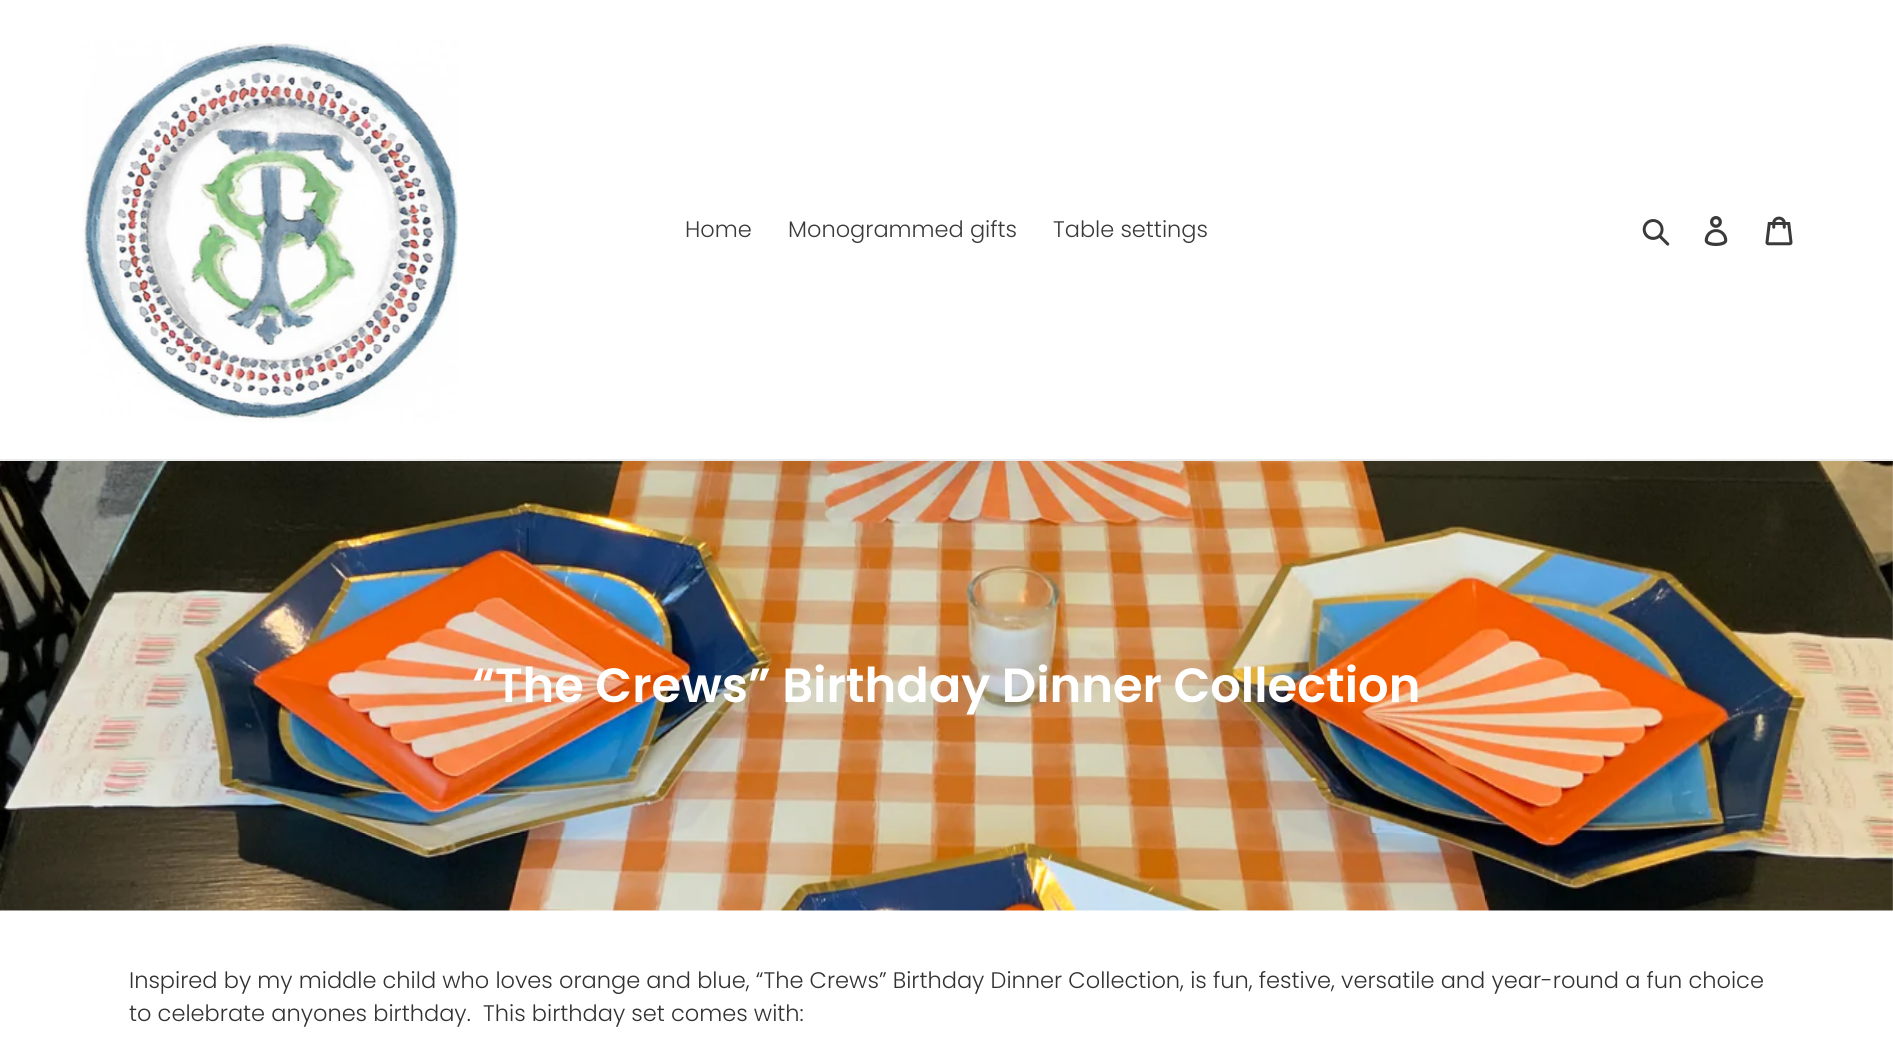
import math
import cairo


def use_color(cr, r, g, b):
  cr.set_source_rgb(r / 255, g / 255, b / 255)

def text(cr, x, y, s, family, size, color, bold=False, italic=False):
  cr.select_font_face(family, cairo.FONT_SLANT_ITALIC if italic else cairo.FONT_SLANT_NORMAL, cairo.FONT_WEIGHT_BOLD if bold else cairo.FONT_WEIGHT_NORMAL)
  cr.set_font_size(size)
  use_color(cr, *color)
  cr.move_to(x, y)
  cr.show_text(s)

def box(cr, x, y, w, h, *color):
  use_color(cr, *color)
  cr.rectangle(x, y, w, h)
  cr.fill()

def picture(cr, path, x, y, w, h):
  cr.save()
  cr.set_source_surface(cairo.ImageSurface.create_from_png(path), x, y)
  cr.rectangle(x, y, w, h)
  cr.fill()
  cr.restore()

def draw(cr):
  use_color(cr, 255, 255, 255)
  cr.paint()
  box(cr, 0, 459, 1893, 2, 235, 235, 235)
  picture(cr, "img_01.png", 82, 40, 376, 382)
  picture(cr, "img_02.png", 1642, 219, 28, 27)
  picture(cr, "img_03.png", 1704, 216, 24, 30)
  picture(cr, "img_04.png", 1765, 216, 28, 30)
  picture(cr, "img_05.png", 0, 461, 1893, 450)
  text(cr, 685, 237, "Home", "Poppins Light", 22.5, (58, 58, 58))
  text(cr, 788, 237, "Monogrammed gifts", "Poppins Light", 22.5, (58, 58, 58))
  text(cr, 1053, 237, "Table settings", "Poppins Light", 22.5, (58, 58, 58))
  text(cr, 472, 702, "“The Crews” Birthday Dinner Collection", "Poppins SemiBold", 48, (255, 255, 255))
  text(cr, 129, 988, "Inspired by my middle child who loves orange and blue, “The Crews” Birthday Dinner Collection, is fun, festive, versatile and year-round a fun choice", "Poppins Light", 22.5, (51, 50, 50))
  text(cr, 129, 1021, "to celebrate anyones birthday.  This birthday set comes with:", "Poppins Light", 22.5, (51, 50, 50))


surface = cairo.ImageSurface(cairo.FORMAT_RGB24, 1893, 1054)
cr = cairo.Context(surface)
options = cairo.FontOptions()
options.set_hint_metrics(cairo.HINT_METRICS_OFF)
options.set_hint_style(cairo.HINT_STYLE_NONE)
cr.set_font_options(options)
cr.set_miter_limit(4)
draw(cr)
surface.write_to_png("out.png")
